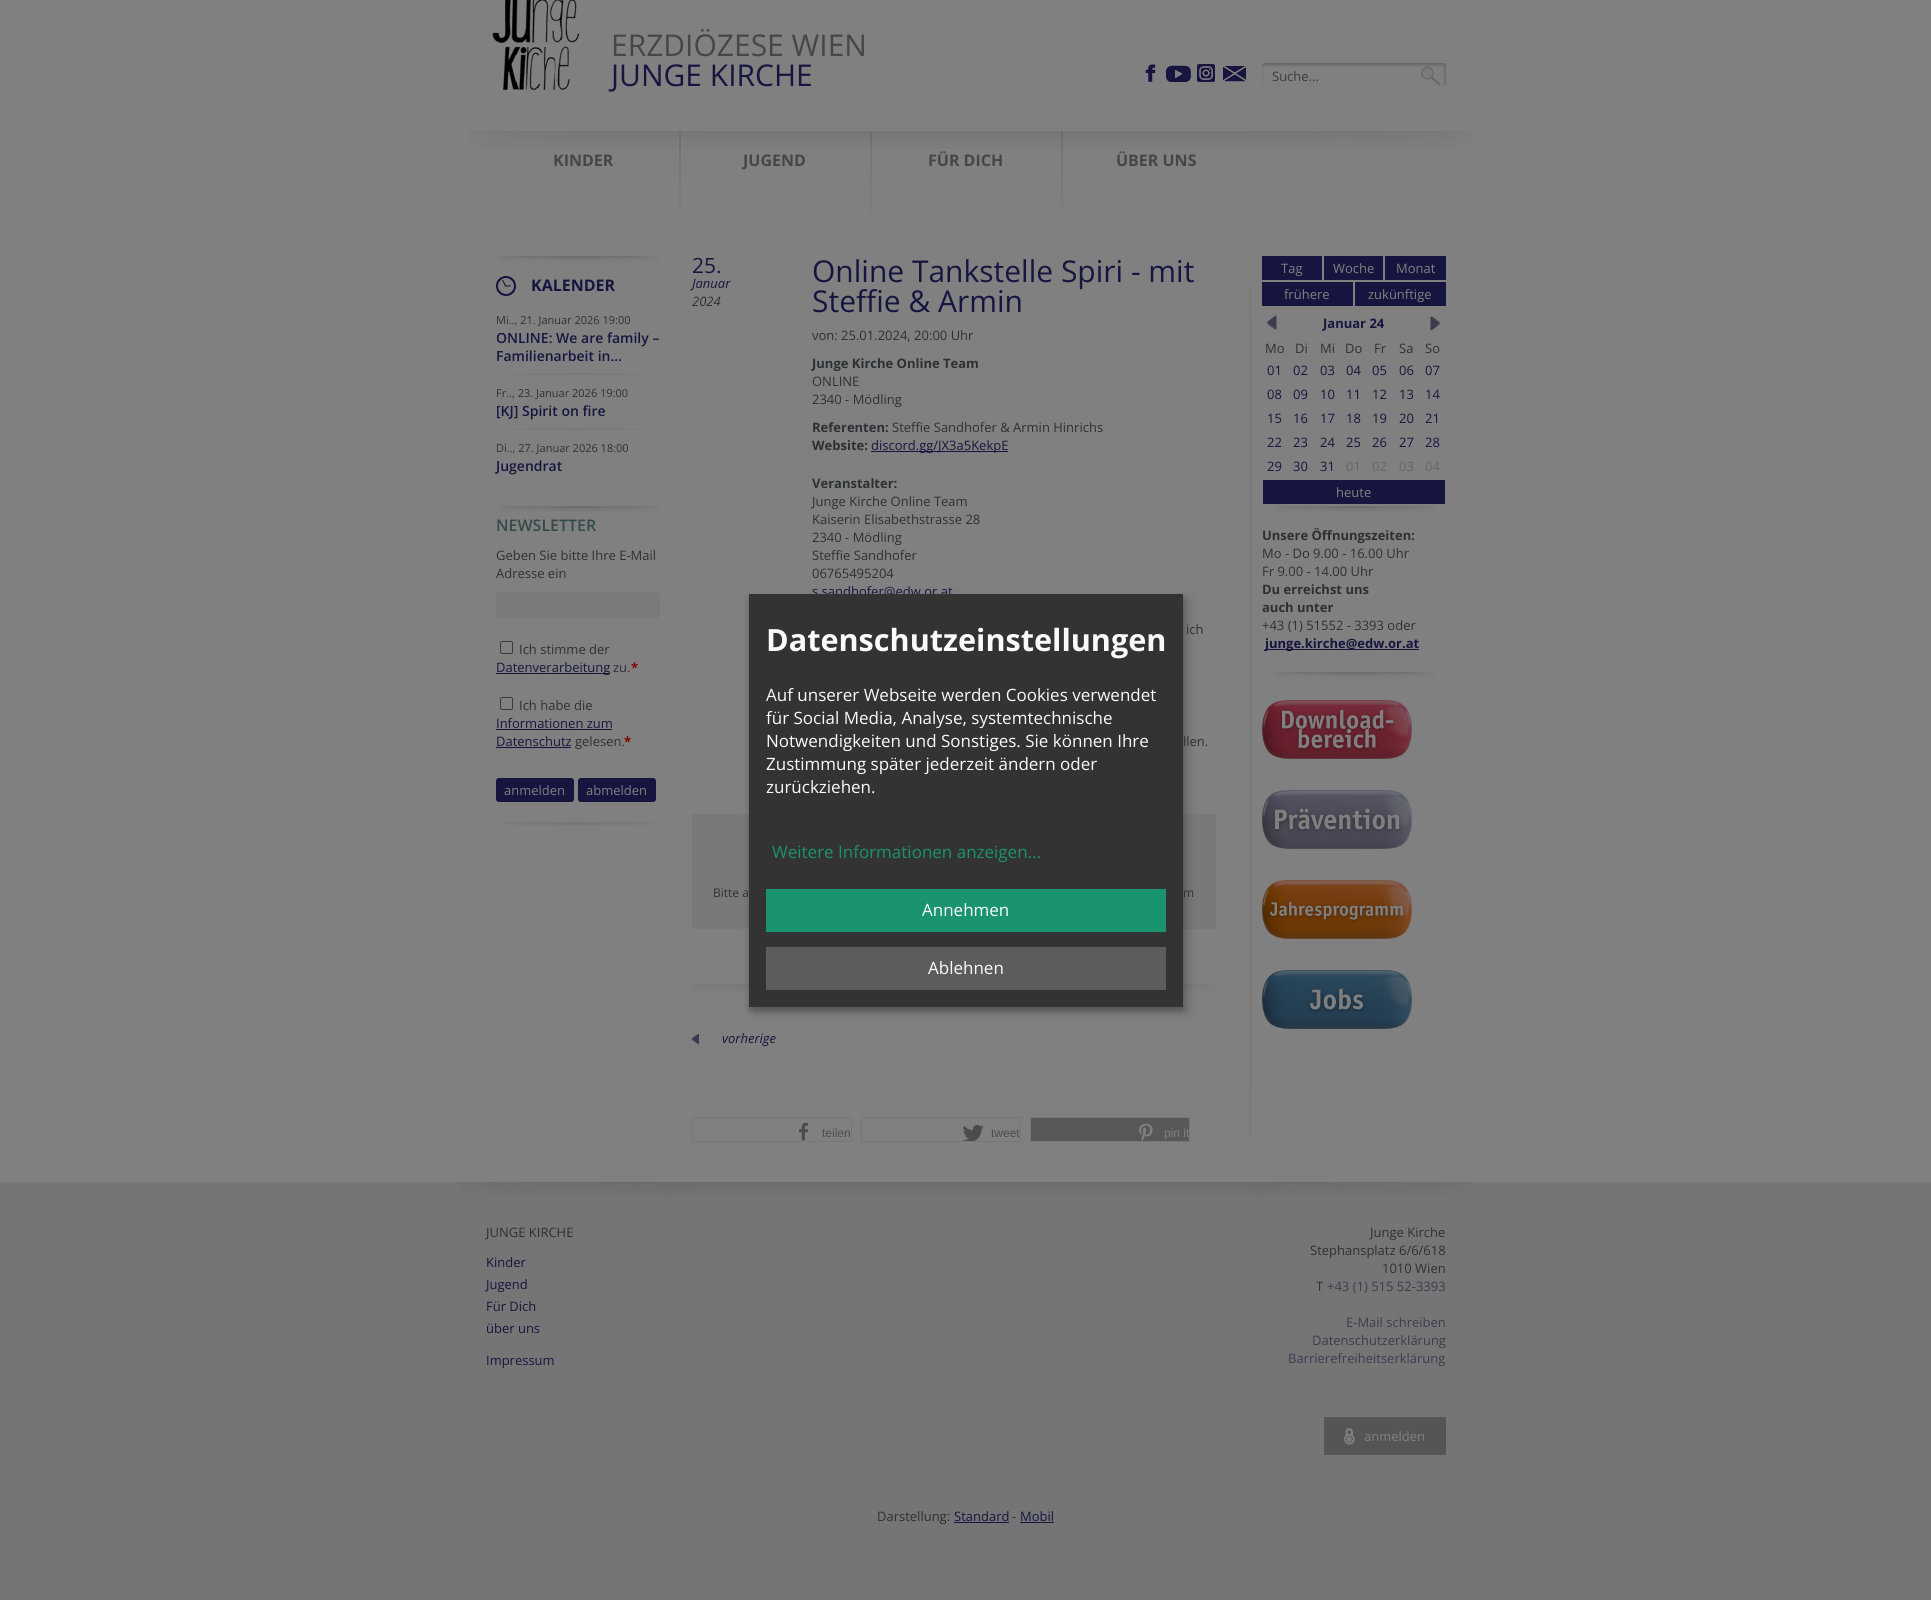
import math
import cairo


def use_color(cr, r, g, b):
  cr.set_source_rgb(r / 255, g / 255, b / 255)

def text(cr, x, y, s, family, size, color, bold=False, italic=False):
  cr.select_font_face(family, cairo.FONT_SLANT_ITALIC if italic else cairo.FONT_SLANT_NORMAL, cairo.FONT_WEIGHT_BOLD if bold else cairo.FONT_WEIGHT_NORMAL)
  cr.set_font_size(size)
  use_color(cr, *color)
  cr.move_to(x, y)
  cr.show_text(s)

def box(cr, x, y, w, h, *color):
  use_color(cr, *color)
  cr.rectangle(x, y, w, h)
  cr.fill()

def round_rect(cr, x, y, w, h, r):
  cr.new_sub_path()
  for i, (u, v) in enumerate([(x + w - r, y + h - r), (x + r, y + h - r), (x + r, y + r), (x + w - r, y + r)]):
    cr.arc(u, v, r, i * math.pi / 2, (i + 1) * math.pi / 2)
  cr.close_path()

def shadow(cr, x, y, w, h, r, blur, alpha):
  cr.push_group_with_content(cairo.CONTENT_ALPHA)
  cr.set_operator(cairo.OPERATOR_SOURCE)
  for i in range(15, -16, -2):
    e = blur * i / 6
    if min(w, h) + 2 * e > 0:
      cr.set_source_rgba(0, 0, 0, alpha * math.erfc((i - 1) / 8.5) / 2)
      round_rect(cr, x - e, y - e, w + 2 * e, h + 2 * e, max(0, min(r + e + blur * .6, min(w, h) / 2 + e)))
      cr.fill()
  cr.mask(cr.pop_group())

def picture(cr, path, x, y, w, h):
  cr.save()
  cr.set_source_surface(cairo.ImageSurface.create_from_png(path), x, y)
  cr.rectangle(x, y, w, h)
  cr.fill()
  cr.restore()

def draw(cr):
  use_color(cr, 117, 117, 117)
  cr.paint()
  box(cr, 0, 0, 1931, 1182, 128, 128, 128)
  picture(cr, "img_01.png", 492, 0, 88, 90)
  picture(cr, "img_02.png", 1145, 64, 11, 18)
  picture(cr, "img_03.png", 1166, 65, 25, 17)
  picture(cr, "img_04.png", 1197, 64, 18, 18)
  picture(cr, "img_05.png", 1223, 66, 23, 16)
  picture(cr, "img_06.png", 1262, 63, 184, 23)
  picture(cr, "img_07.png", 1421, 67, 19, 18)
  picture(cr, "img_08.png", 469, 131, 1002, 18)
  picture(cr, "img_09.png", 679, 131, 2, 84)
  picture(cr, "img_10.png", 870, 131, 2, 84)
  picture(cr, "img_10.png", 1061, 131, 2, 84)
  picture(cr, "img_11.png", 498, 256, 160, 6)
  picture(cr, "img_12.png", 496, 276, 20, 20)
  picture(cr, "img_13.png", 507, 373, 138, 2)
  picture(cr, "img_13.png", 507, 428, 138, 2)
  picture(cr, "img_11.png", 498, 506, 160, 6)
  use_color(cr, 122, 122, 122)
  round_rect(cr, 496, 592, 164, 26, 3)
  cr.fill()
  round_rect(cr, 500.5, 641.5, 12, 12, 1.5)
  use_color(cr, 59, 59, 59)
  cr.set_line_width(1)
  cr.stroke()
  box(cr, 496, 673, 114, 1, 22, 21, 63)
  round_rect(cr, 500.5, 697.5, 12, 12, 1.5)
  use_color(cr, 59, 59, 59)
  cr.stroke()
  box(cr, 496, 729, 116, 1, 22, 21, 63)
  box(cr, 496, 747, 75, 1, 22, 21, 63)
  round_rect(cr, 496, 778, 78, 24, 3)
  cr.fill()
  round_rect(cr, 578, 778, 78, 24, 3)
  cr.fill()
  picture(cr, "img_14.png", 500, 822, 156, 4)
  picture(cr, "img_15.png", 1249, 371, 3, 795)
  picture(cr, "img_16.png", 1249, 256, 3, 115)
  box(cr, 871, 451, 137, 1, 22, 21, 63)
  box(cr, 692, 814, 524, 115, 121, 121, 121)
  picture(cr, "img_17.png", 692, 984, 524, 8)
  picture(cr, "img_18.png", 692, 1034, 7, 10)
  cr.rectangle(692.5, 1117.5, 159, 24)
  use_color(cr, 119, 119, 119)
  cr.stroke()
  picture(cr, "img_19.png", 799, 1122, 10, 19)
  cr.rectangle(861.5, 1117.5, 159, 24)
  cr.stroke()
  picture(cr, "img_20.png", 962, 1124, 22, 17)
  cr.rectangle(1030.5, 1117.5, 159, 24)
  cr.stroke()
  box(cr, 1031, 1118, 158, 23, 88, 88, 88)
  picture(cr, "img_21.png", 1139, 1123, 14, 18)
  box(cr, 1262, 256, 60, 24, 22, 21, 63)
  box(cr, 1324, 256, 59, 24, 22, 21, 63)
  box(cr, 1385, 256, 61, 24, 22, 21, 63)
  box(cr, 1262, 282, 91, 24, 22, 21, 63)
  box(cr, 1355, 282, 91, 24, 22, 21, 63)
  picture(cr, "img_22.png", 1266, 315, 11, 15)
  picture(cr, "img_23.png", 1430, 316, 11, 15)
  box(cr, 1263, 480, 182, 24, 22, 21, 63)
  picture(cr, "img_11.png", 1274, 506, 160, 6)
  box(cr, 1265, 649, 154, 1, 22, 21, 63)
  picture(cr, "img_11.png", 1274, 672, 160, 6)
  picture(cr, "img_24.png", 1262, 700, 150, 59)
  picture(cr, "img_25.png", 1262, 790, 150, 60)
  picture(cr, "img_26.png", 1262, 880, 150, 59)
  picture(cr, "img_27.png", 1262, 970, 150, 59)
  use_color(cr, 0, 0, 0)
  shadow(cr, 754, 599, 434, 413, 0, 5, 0.19)
  shadow(cr, 749, 598, 434, 413, 0, 3, 0.2)
  picture(cr, "img_28.png", 459, 1182, 1012, 14)
  box(cr, 1324, 1417, 122, 38, 85, 85, 85)
  picture(cr, "img_29.png", 1344, 1428, 11, 17)
  box(cr, 954, 1522, 55, 1, 22, 21, 63)
  box(cr, 1020, 1522, 34, 1, 22, 21, 63)
  text(cr, 611, 56, "ERZDIÖZESE WIEN", "Open Sans", 30, (69, 70, 71))
  text(cr, 611, 86, "JUNGE KIRCHE", "Open Sans", 30, (22, 21, 63))
  text(cr, 1272, 81, "Suche...", "Open Sans", 13, (59, 59, 59))
  text(cr, 553, 166, "KINDER", "Open Sans", 16, (69, 70, 71), bold=True)
  text(cr, 743, 166, "JUGEND", "Open Sans", 16, (69, 70, 71), bold=True)
  text(cr, 928, 166, "FÜR DICH", "Open Sans", 16, (69, 70, 71), bold=True)
  text(cr, 1116, 166, "ÜBER UNS", "Open Sans", 16, (69, 70, 71), bold=True)
  text(cr, 531, 291, "KALENDER", "Open Sans", 16, (22, 21, 63), bold=True)
  text(cr, 496, 324, "Mi.., 21. Januar 2026 19:00", "Open Sans", 11, (45, 48, 51))
  text(cr, 496, 343, "ONLINE: We are family –", "Open Sans SemiBold", 14, (22, 21, 63))
  text(cr, 496, 361, "Familienarbeit in...", "Open Sans SemiBold", 14, (22, 21, 63))
  text(cr, 496, 397, "Fr.., 23. Januar 2026 19:00", "Open Sans", 11, (45, 48, 51))
  text(cr, 496, 416, "[KJ] Spirit on fire", "Open Sans SemiBold", 14, (22, 21, 63))
  text(cr, 496, 452, "Di.., 27. Januar 2026 18:00", "Open Sans", 11, (45, 48, 51))
  text(cr, 496, 471, "Jugendrat", "Open Sans SemiBold", 14, (22, 21, 63))
  text(cr, 496, 531, "NEWSLETTER", "Open Sans SemiBold", 16, (51, 74, 72))
  text(cr, 496, 560, "Geben Sie bitte Ihre E-Mail", "Open Sans", 13, (45, 48, 51))
  text(cr, 496, 578, "Adresse ein", "Open Sans", 13, (45, 48, 51))
  text(cr, 519, 654, "Ich stimme der", "Open Sans", 13, (45, 48, 51))
  text(cr, 496, 672, "Datenverarbeitung", "Open Sans", 13, (22, 21, 63))
  text(cr, 613, 672, "zu.", "Open Sans", 13, (45, 48, 51))
  text(cr, 631, 672, "*", "Open Sans", 13, (128, 0, 0), bold=True)
  text(cr, 519, 710, "Ich habe die", "Open Sans", 13, (45, 48, 51))
  text(cr, 496, 728, "Informationen zum", "Open Sans", 13, (22, 21, 63))
  text(cr, 496, 746, "Datenschutz", "Open Sans", 13, (22, 21, 63))
  text(cr, 575, 746, "gelesen.", "Open Sans", 13, (45, 48, 51))
  text(cr, 624, 746, "*", "Open Sans", 13, (128, 0, 0), bold=True)
  text(cr, 504, 795, "anmelden", "Open Sans", 13, (128, 128, 128))
  text(cr, 586, 795, "abmelden", "Open Sans", 13, (128, 128, 128))
  text(cr, 692, 273, "25.", "Open Sans", 21, (22, 21, 63))
  text(cr, 692, 288, "Januar", "Open Sans", 13, (22, 21, 63), italic=True)
  text(cr, 692, 306, "2024", "Open Sans", 13, (45, 48, 51), italic=True)
  text(cr, 812, 282, "Online Tankstelle Spiri - mit", "Open Sans", 30, (22, 21, 63))
  text(cr, 812, 312, "Steffie & Armin", "Open Sans", 30, (22, 21, 63))
  text(cr, 812, 340, "von: 25.01.2024, 20:00 Uhr", "Open Sans", 13, (45, 48, 51))
  text(cr, 812, 368, "Junge Kirche Online Team", "Open Sans", 13, (45, 48, 51), bold=True)
  text(cr, 812, 386, "ONLINE", "Open Sans", 13, (45, 48, 51))
  text(cr, 812, 404, "2340 - Mödling", "Open Sans", 13, (45, 48, 51))
  text(cr, 812, 432, "Referenten:", "Open Sans", 13, (45, 48, 51), bold=True)
  text(cr, 892, 432, "Steffie Sandhofer & Armin Hinrichs", "Open Sans", 13, (45, 48, 51))
  text(cr, 812, 450, "Website:", "Open Sans", 13, (45, 48, 51), bold=True)
  text(cr, 871, 450, "discord.gg/JX3a5KekpE", "Open Sans", 13, (22, 21, 63))
  text(cr, 812, 488, "Veranstalter:", "Open Sans", 13, (45, 48, 51), bold=True)
  text(cr, 812, 506, "Junge Kirche Online Team", "Open Sans", 13, (45, 48, 51))
  text(cr, 812, 524, "Kaiserin Elisabethstrasse 28", "Open Sans", 13, (45, 48, 51))
  text(cr, 812, 542, "2340 - Mödling", "Open Sans", 13, (45, 48, 51))
  text(cr, 812, 560, "Steffie Sandhofer", "Open Sans", 13, (45, 48, 51))
  text(cr, 812, 578, "06765495204", "Open Sans", 13, (45, 48, 51))
  text(cr, 812, 596, "s.sandhofer@edw.or.at", "Open Sans", 13, (22, 21, 63))
  text(cr, 1186, 634, "ich", "Open Sans", 13, (45, 48, 51))
  text(cr, 1183, 746, "llen.", "Open Sans", 13, (45, 48, 51))
  text(cr, 713, 897, "Bitte a", "Open Sans", 12, (45, 48, 51))
  text(cr, 1183, 897, "m", "Open Sans", 12, (45, 48, 51))
  text(cr, 722, 1043, "vorherige", "Open Sans", 13, (22, 21, 63), italic=True)
  text(cr, 822, 1137, "teilen", "Liberation Sans", 12, (77, 77, 77))
  text(cr, 991, 1137, "tweet", "Liberation Sans", 12, (77, 77, 77))
  text(cr, 1164, 1137, "pin it", "Liberation Sans", 12, (128, 128, 128))
  text(cr, 1281, 273, "Tag", "Open Sans", 13, (128, 128, 128))
  text(cr, 1333, 273, "Woche", "Open Sans", 13, (128, 128, 128))
  text(cr, 1396, 273, "Monat", "Open Sans", 13, (128, 128, 128))
  text(cr, 1284, 299, "frühere", "Open Sans", 13, (128, 128, 128))
  text(cr, 1368, 299, "zukünftige", "Open Sans", 13, (128, 128, 128))
  text(cr, 1323, 328, "Januar 24", "Open Sans", 13, (22, 21, 63), bold=True)
  text(cr, 1265, 353, "Mo", "Open Sans", 13, (45, 48, 51))
  text(cr, 1295, 353, "Di", "Open Sans", 13, (45, 48, 51))
  text(cr, 1320, 353, "Mi", "Open Sans", 13, (45, 48, 51))
  text(cr, 1345, 353, "Do", "Open Sans", 13, (45, 48, 51))
  text(cr, 1374, 353, "Fr", "Open Sans", 13, (45, 48, 51))
  text(cr, 1399, 353, "Sa", "Open Sans", 13, (45, 48, 51))
  text(cr, 1425, 353, "So", "Open Sans", 13, (45, 48, 51))
  text(cr, 1267, 375, "01", "Open Sans", 13, (22, 21, 63))
  text(cr, 1293, 375, "02", "Open Sans", 13, (22, 21, 63))
  text(cr, 1320, 375, "03", "Open Sans", 13, (22, 21, 63))
  text(cr, 1346, 375, "04", "Open Sans", 13, (22, 21, 63))
  text(cr, 1372, 375, "05", "Open Sans", 13, (22, 21, 63))
  text(cr, 1399, 375, "06", "Open Sans", 13, (22, 21, 63))
  text(cr, 1425, 375, "07", "Open Sans", 13, (22, 21, 63))
  text(cr, 1267, 399, "08", "Open Sans", 13, (22, 21, 63))
  text(cr, 1293, 399, "09", "Open Sans", 13, (22, 21, 63))
  text(cr, 1320, 399, "10", "Open Sans", 13, (22, 21, 63))
  text(cr, 1346, 399, "11", "Open Sans", 13, (22, 21, 63))
  text(cr, 1372, 399, "12", "Open Sans", 13, (22, 21, 63))
  text(cr, 1399, 399, "13", "Open Sans", 13, (22, 21, 63))
  text(cr, 1425, 399, "14", "Open Sans", 13, (22, 21, 63))
  text(cr, 1267, 423, "15", "Open Sans", 13, (22, 21, 63))
  text(cr, 1293, 423, "16", "Open Sans", 13, (22, 21, 63))
  text(cr, 1320, 423, "17", "Open Sans", 13, (22, 21, 63))
  text(cr, 1346, 423, "18", "Open Sans", 13, (22, 21, 63))
  text(cr, 1372, 423, "19", "Open Sans", 13, (22, 21, 63))
  text(cr, 1399, 423, "20", "Open Sans", 13, (22, 21, 63))
  text(cr, 1425, 423, "21", "Open Sans", 13, (22, 21, 63))
  text(cr, 1267, 447, "22", "Open Sans", 13, (22, 21, 63))
  text(cr, 1293, 447, "23", "Open Sans", 13, (22, 21, 63))
  text(cr, 1320, 447, "24", "Open Sans", 13, (22, 21, 63))
  text(cr, 1346, 447, "25", "Open Sans", 13, (22, 21, 63))
  text(cr, 1372, 447, "26", "Open Sans", 13, (22, 21, 63))
  text(cr, 1399, 447, "27", "Open Sans", 13, (22, 21, 63))
  text(cr, 1425, 447, "28", "Open Sans", 13, (22, 21, 63))
  text(cr, 1267, 471, "29", "Open Sans", 13, (22, 21, 63))
  text(cr, 1293, 471, "30", "Open Sans", 13, (22, 21, 63))
  text(cr, 1320, 471, "31", "Open Sans", 13, (22, 21, 63))
  text(cr, 1346, 471, "01", "Open Sans", 13, (102, 102, 102))
  text(cr, 1372, 471, "02", "Open Sans", 13, (102, 102, 102))
  text(cr, 1399, 471, "03", "Open Sans", 13, (102, 102, 102))
  text(cr, 1425, 471, "04", "Open Sans", 13, (102, 102, 102))
  text(cr, 1336, 497, "heute", "Open Sans", 13, (128, 128, 128))
  text(cr, 1262, 540, "Unsere Öffnungszeiten:", "Open Sans", 13, (45, 48, 51), bold=True)
  text(cr, 1262, 558, "Mo - Do 9.00 - 16.00 Uhr", "Open Sans", 13, (45, 48, 51))
  text(cr, 1262, 576, "Fr 9.00 - 14.00 Uhr", "Open Sans", 13, (45, 48, 51))
  text(cr, 1262, 594, "Du erreichst uns", "Open Sans", 13, (45, 48, 51), bold=True)
  text(cr, 1262, 612, "auch unter", "Open Sans", 13, (45, 48, 51), bold=True)
  text(cr, 1262, 630, "+43 (1) 51552 - 3393 oder", "Open Sans", 13, (45, 48, 51))
  text(cr, 1265, 648, "junge.kirche@edw.or.at", "Open Sans", 13, (22, 21, 63), bold=True)
  box(cr, 749, 594, 434, 413, 51, 51, 51)
  text(cr, 766, 651, "Datenschutzeinstellungen", "Open Sans", 30.6, (250, 250, 250), bold=True)
  text(cr, 766, 701, "Auf unserer Webseite werden Cookies verwendet", "Open Sans", 17, (250, 250, 250))
  text(cr, 766, 724, "für Social Media, Analyse, systemtechnische", "Open Sans", 17, (250, 250, 250))
  text(cr, 766, 747, "Notwendigkeiten und Sonstiges. Sie können Ihre", "Open Sans", 17, (250, 250, 250))
  text(cr, 766, 770, "Zustimmung später jederzeit ändern oder", "Open Sans", 17, (250, 250, 250))
  text(cr, 766, 793, "zurückziehen.", "Open Sans", 17, (250, 250, 250))
  text(cr, 772, 858, "Weitere Informationen anzeigen...", "Open Sans", 17, (26, 147, 111))
  box(cr, 766, 889, 400, 43, 26, 147, 111)
  text(cr, 922, 916, "Annehmen", "Open Sans", 17, (250, 250, 250))
  box(cr, 766, 947, 400, 43, 92, 92, 92)
  text(cr, 928, 974, "Ablehnen", "Open Sans", 17, (250, 250, 250))
  text(cr, 486, 1237, "JUNGE KIRCHE", "Open Sans", 13, (45, 48, 51))
  text(cr, 486, 1267, "Kinder", "Open Sans", 13, (22, 21, 63))
  text(cr, 486, 1289, "Jugend", "Open Sans", 13, (22, 21, 63))
  text(cr, 486, 1311, "Für Dich", "Open Sans", 13, (22, 21, 63))
  text(cr, 486, 1333, "über uns", "Open Sans", 13, (22, 21, 63))
  text(cr, 486, 1365, "Impressum", "Open Sans", 13, (22, 21, 63))
  text(cr, 1370, 1237, "Junge Kirche", "Open Sans", 13, (45, 48, 51))
  text(cr, 1310, 1255, "Stephansplatz 6/6/618", "Open Sans", 13, (45, 48, 51))
  text(cr, 1382, 1273, "1010 Wien", "Open Sans", 13, (45, 48, 51))
  text(cr, 1316, 1291, "T", "Open Sans", 13, (45, 48, 51))
  text(cr, 1327, 1291, "+43 (1) 515 52-3393", "Open Sans", 13, (60, 60, 80))
  text(cr, 1346, 1327, "E-Mail schreiben", "Open Sans", 13, (60, 60, 80))
  text(cr, 1312, 1345, "Datenschutzerklärung", "Open Sans", 13, (60, 60, 80))
  text(cr, 1288, 1363, "Barrierefreiheitserklärung", "Open Sans", 13, (60, 60, 80))
  text(cr, 1364, 1441, "anmelden", "Open Sans", 13, (128, 128, 128))
  text(cr, 877, 1521, "Darstellung:", "Open Sans", 13, (45, 48, 51))
  text(cr, 954, 1521, "Standard", "Open Sans", 13, (22, 21, 63))
  text(cr, 1012, 1521, "-", "Open Sans", 13, (45, 48, 51))
  text(cr, 1020, 1521, "Mobil", "Open Sans", 13, (22, 21, 63))


surface = cairo.ImageSurface(cairo.FORMAT_RGB24, 1931, 1600)
cr = cairo.Context(surface)
options = cairo.FontOptions()
options.set_hint_metrics(cairo.HINT_METRICS_OFF)
options.set_hint_style(cairo.HINT_STYLE_NONE)
cr.set_font_options(options)
cr.set_miter_limit(4)
draw(cr)
surface.write_to_png("out.png")
